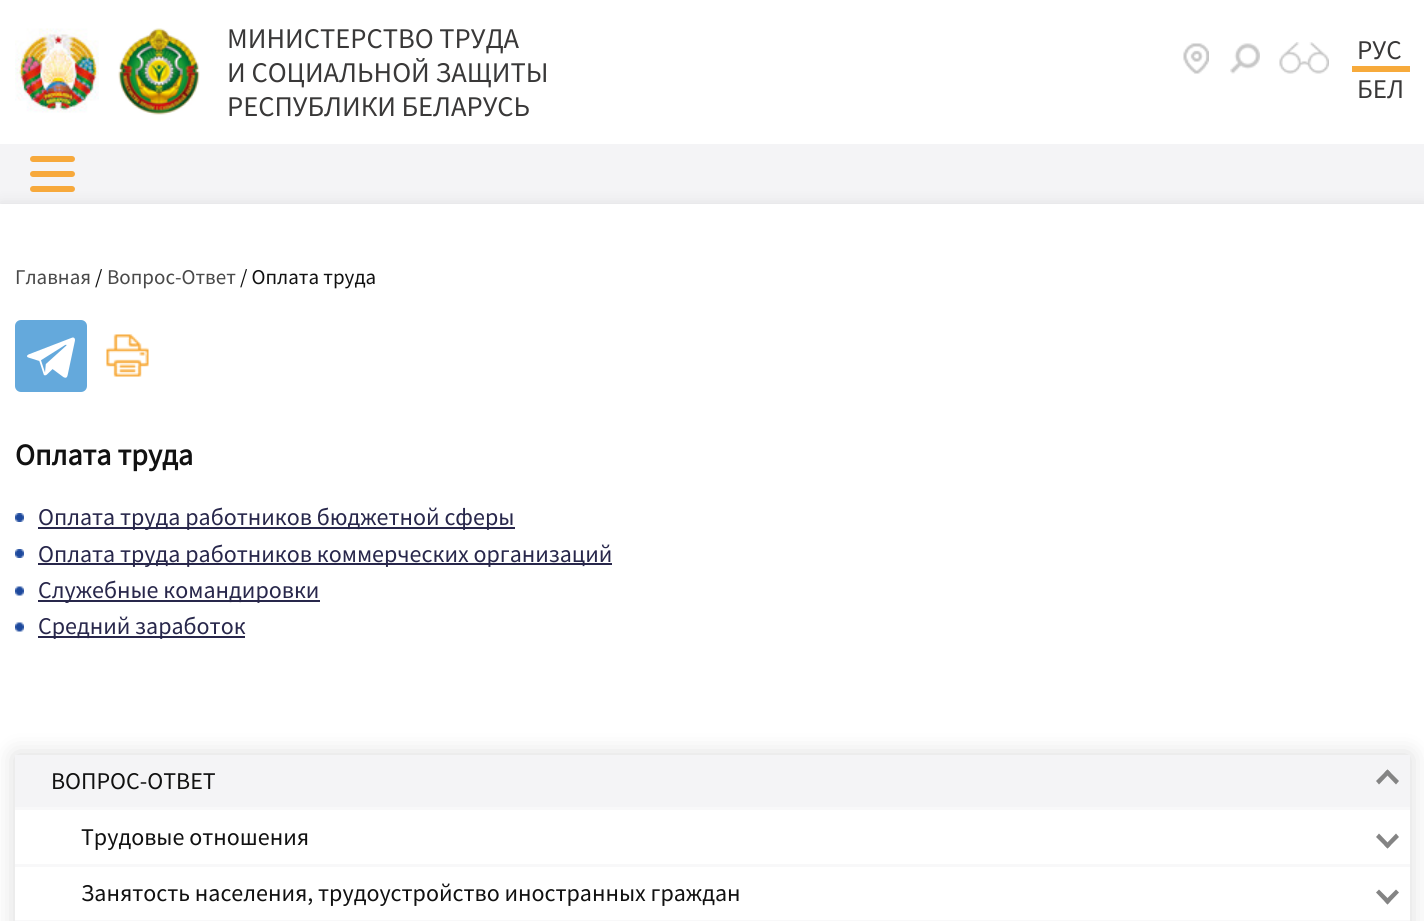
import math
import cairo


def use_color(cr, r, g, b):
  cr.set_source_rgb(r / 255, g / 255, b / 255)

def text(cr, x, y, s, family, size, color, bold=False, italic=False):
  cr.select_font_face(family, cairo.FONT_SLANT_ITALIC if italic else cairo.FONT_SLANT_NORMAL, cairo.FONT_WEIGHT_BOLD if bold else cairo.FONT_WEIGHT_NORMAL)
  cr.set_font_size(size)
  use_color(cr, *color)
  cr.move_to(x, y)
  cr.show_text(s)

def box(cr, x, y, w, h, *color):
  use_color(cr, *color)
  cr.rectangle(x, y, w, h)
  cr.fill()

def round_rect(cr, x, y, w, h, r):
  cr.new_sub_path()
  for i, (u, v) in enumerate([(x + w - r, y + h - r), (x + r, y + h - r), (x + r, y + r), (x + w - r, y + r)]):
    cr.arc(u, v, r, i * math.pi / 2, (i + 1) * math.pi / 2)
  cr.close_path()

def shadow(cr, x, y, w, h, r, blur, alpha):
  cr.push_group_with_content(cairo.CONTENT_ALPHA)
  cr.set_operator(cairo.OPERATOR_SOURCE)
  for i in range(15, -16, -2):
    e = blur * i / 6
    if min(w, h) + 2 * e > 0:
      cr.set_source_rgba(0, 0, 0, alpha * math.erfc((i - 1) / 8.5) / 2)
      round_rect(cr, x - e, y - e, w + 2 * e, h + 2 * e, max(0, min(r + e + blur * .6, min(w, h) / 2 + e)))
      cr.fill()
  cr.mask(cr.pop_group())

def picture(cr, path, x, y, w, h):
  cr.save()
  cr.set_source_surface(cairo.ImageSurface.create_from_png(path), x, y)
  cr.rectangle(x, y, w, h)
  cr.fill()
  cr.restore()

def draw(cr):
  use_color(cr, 255, 255, 255)
  cr.paint()
  picture(cr, "img_01.png", 15, 28, 84, 85)
  picture(cr, "img_02.png", 118, 28, 82, 87)
  picture(cr, "img_03.png", 1183, 43, 26, 31)
  picture(cr, "img_04.png", 1230, 43, 30, 31)
  picture(cr, "img_05.png", 1279, 42, 50, 32)
  box(cr, 1352, 66, 58, 6, 247, 170, 59)
  box(cr, 0, 144, 1424, 60, 244, 244, 246)
  use_color(cr, 247, 169, 60)
  round_rect(cr, 30, 171, 45, 6, 3)
  cr.fill()
  round_rect(cr, 30, 156, 45, 6, 3)
  cr.fill()
  use_color(cr, 0, 0, 0)
  shadow(cr, 0, 204, 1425, 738, 0, 7, 0.09)
  use_color(cr, 247, 169, 60)
  round_rect(cr, 30, 186, 45, 6, 3)
  cr.fill()
  box(cr, 0, 204, 1424, 717, 255, 255, 255)
  use_color(cr, 100, 169, 220)
  round_rect(cr, 15, 320, 72, 72, 6)
  cr.fill()
  picture(cr, "img_06.png", 27, 337, 48, 41)
  picture(cr, "img_07.png", 106, 334, 43, 43)
  picture(cr, "img_08.png", 15, 513, 9, 9)
  box(cr, 38, 527, 477, 2, 40, 39, 75)
  picture(cr, "img_08.png", 15, 549, 9, 9)
  box(cr, 38, 563, 574, 2, 40, 39, 75)
  picture(cr, "img_09.png", 15, 586, 9, 10)
  box(cr, 38, 600, 282, 2, 40, 39, 75)
  picture(cr, "img_09.png", 15, 622, 9, 10)
  box(cr, 38, 636, 207, 2, 40, 39, 75)
  use_color(cr, 0, 0, 0)
  shadow(cr, 15, 755, 1395, 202, 0, 12, 0.15)
  box(cr, 15, 755, 1395, 52, 244, 244, 246)
  box(cr, 15, 807, 1395, 3, 248, 248, 249)
  use_color(cr, 132, 132, 132)
  cr.new_path()
  cr.move_to(1379, 784.5)
  cr.line_to(1376, 781)
  cr.line_to(1387.5, 769.5)
  cr.line_to(1390.5, 772.5)
  cr.close_path()
  cr.fill()
  cr.new_path()
  cr.move_to(1396, 784.5)
  cr.line_to(1384.5, 772.5)
  cr.line_to(1387.5, 769.5)
  cr.line_to(1399, 781)
  cr.close_path()
  cr.fill()
  box(cr, 15, 810, 1395, 110, 255, 255, 255)
  box(cr, 15, 864, 1395, 3, 248, 248, 249)
  use_color(cr, 132, 132, 132)
  cr.new_path()
  cr.move_to(1396, 833.5)
  cr.line_to(1399, 837)
  cr.line_to(1387.5, 848.5)
  cr.line_to(1384.5, 845.5)
  cr.close_path()
  cr.fill()
  cr.new_path()
  cr.move_to(1379, 833.5)
  cr.line_to(1390.5, 845.5)
  cr.line_to(1387.5, 848.5)
  cr.line_to(1376, 837)
  cr.close_path()
  cr.fill()
  box(cr, 15, 920, 1395, 1, 248, 248, 249)
  use_color(cr, 132, 132, 132)
  cr.new_path()
  cr.move_to(1396, 889.5)
  cr.line_to(1399, 892.5)
  cr.line_to(1387.5, 904.5)
  cr.line_to(1384.5, 901)
  cr.close_path()
  cr.fill()
  cr.new_path()
  cr.move_to(1379, 889.5)
  cr.line_to(1390.5, 901)
  cr.line_to(1387.5, 904.5)
  cr.line_to(1376, 892.5)
  cr.close_path()
  cr.fill()
  text(cr, 227, 48, "МИНИСТЕРСТВО ТРУДА", "Source Sans Pro", 28.5, (57, 56, 56))
  text(cr, 227, 82, "И СОЦИАЛЬНОЙ ЗАЩИТЫ", "Source Sans Pro", 28.5, (57, 56, 56))
  text(cr, 227, 116, "РЕСПУБЛИКИ БЕЛАРУСЬ", "Source Sans Pro", 28.5, (57, 56, 56))
  text(cr, 1357, 59, "РУС", "Source Sans Pro", 27, (57, 56, 56))
  text(cr, 1357, 98, "БЕЛ", "Source Sans Pro", 27, (57, 56, 56))
  text(cr, 15, 284, "Главная", "Source Sans Pro", 21, (73, 73, 73))
  text(cr, 95, 284, "/", "Source Sans Pro", 21, (17, 17, 17))
  text(cr, 107, 284, "Вопрос-Ответ", "Source Sans Pro", 21, (73, 73, 73))
  text(cr, 240, 284, "/ Оплата труда", "Source Sans Pro", 21, (17, 17, 17))
  text(cr, 15, 465, "Оплата труда", "Source Sans Pro", 30, (17, 17, 17), bold=True)
  text(cr, 38, 525, "Оплата труда работников бюджетной сферы", "Source Sans Pro", 24, (40, 39, 75))
  text(cr, 38, 562, "Оплата труда работников коммерческих организаций", "Source Sans Pro", 24, (40, 39, 75))
  text(cr, 38, 598, "Служебные командировки", "Source Sans Pro", 24, (40, 39, 75))
  text(cr, 38, 634, "Средний заработок", "Source Sans Pro", 24, (40, 39, 75))
  text(cr, 51, 789, "ВОПРОС-ОТВЕТ", "Source Sans Pro", 24, (17, 17, 17))
  text(cr, 81, 845, "Трудовые отношения", "Source Sans Pro", 24, (17, 17, 17))
  text(cr, 81, 901, "Занятость населения, трудоустройство иностранных граждан", "Source Sans Pro", 24, (17, 17, 17))


surface = cairo.ImageSurface(cairo.FORMAT_RGB24, 1424, 921)
cr = cairo.Context(surface)
options = cairo.FontOptions()
options.set_hint_metrics(cairo.HINT_METRICS_OFF)
options.set_hint_style(cairo.HINT_STYLE_NONE)
cr.set_font_options(options)
cr.set_miter_limit(4)
draw(cr)
surface.write_to_png("out.png")
